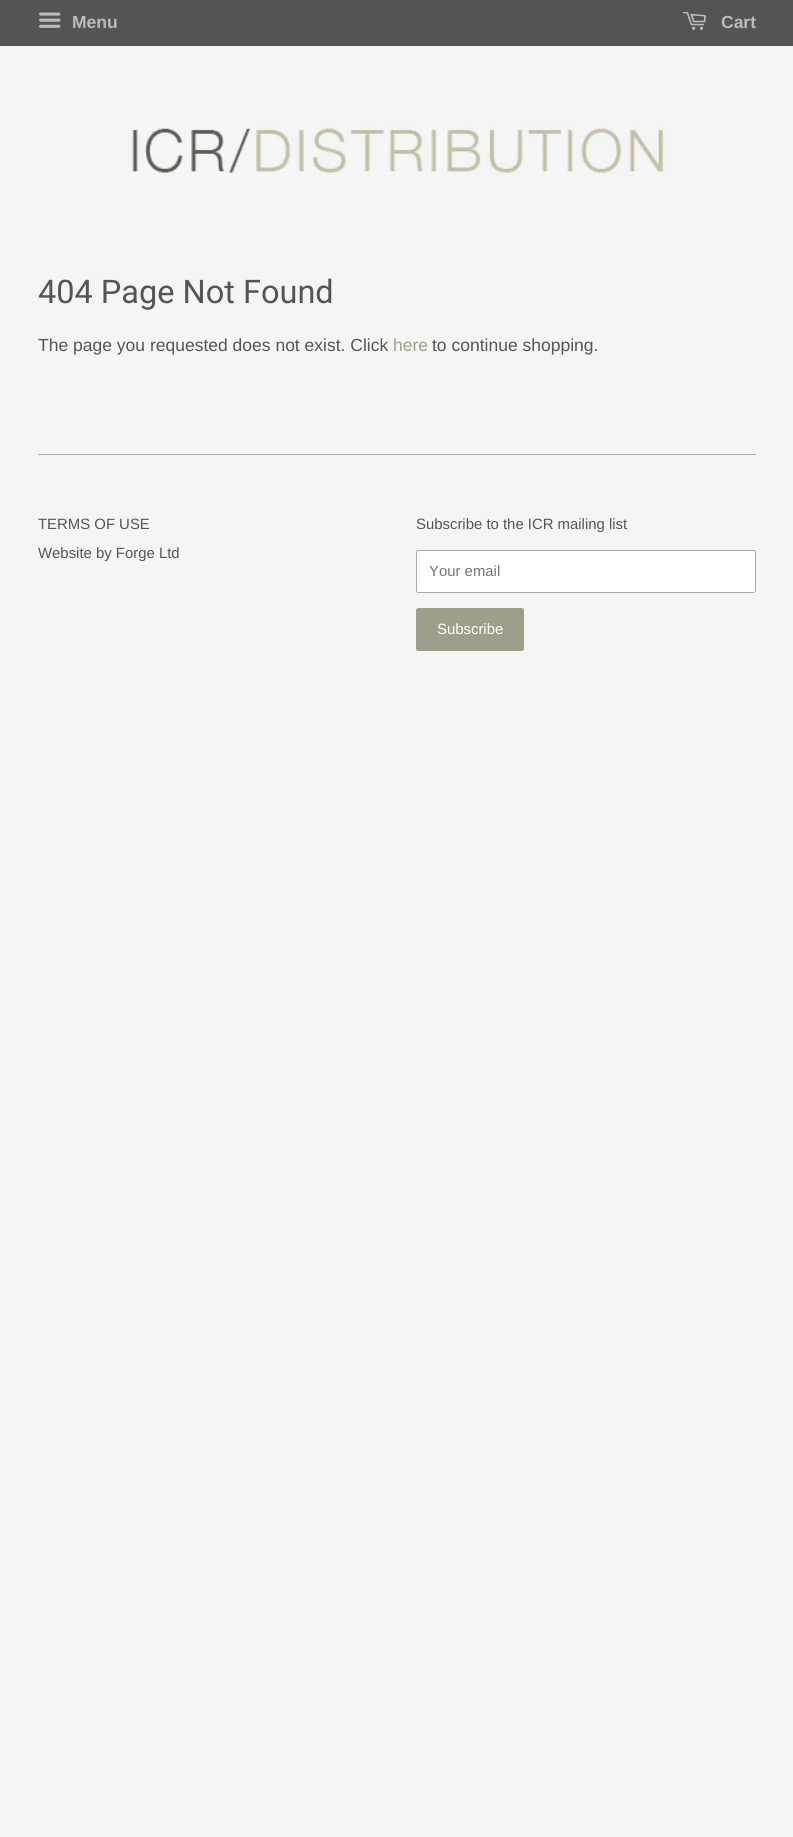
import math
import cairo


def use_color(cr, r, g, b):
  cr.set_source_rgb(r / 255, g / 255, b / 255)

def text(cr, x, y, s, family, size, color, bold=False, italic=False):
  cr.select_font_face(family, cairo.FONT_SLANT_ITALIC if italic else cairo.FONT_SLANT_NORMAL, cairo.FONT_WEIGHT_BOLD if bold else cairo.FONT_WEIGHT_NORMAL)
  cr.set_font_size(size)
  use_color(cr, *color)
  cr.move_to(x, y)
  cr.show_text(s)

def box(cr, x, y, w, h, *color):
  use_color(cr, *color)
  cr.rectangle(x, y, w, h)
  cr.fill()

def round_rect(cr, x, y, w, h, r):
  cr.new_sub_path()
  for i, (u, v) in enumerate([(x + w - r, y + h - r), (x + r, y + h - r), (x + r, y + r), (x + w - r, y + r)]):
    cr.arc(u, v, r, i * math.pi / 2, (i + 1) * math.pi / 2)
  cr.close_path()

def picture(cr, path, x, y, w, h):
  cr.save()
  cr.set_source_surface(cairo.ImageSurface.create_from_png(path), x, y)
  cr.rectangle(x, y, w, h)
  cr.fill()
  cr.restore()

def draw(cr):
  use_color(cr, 245, 245, 245)
  cr.paint()
  box(cr, 0, 0, 793, 46, 84, 84, 84)
  picture(cr, "img_01.png", 39, 12, 22, 16)
  picture(cr, "img_02.png", 683, 11, 23, 19)
  picture(cr, "img_03.png", 132, 126, 534, 50)
  box(cr, 38, 454, 718, 1, 170, 170, 170)
  use_color(cr, 255, 255, 255)
  round_rect(cr, 416.5, 550.5, 339, 42, 2)
  cr.fill_preserve()
  use_color(cr, 170, 170, 170)
  cr.set_line_width(1)
  cr.stroke()
  use_color(cr, 159, 158, 138)
  round_rect(cr, 416, 608, 108, 43, 2.5)
  cr.fill()
  text(cr, 72, 28, "Menu", "Liberation Sans", 17.5, (187, 187, 187), bold=True)
  text(cr, 721, 28, "Cart", "Liberation Sans", 17.5, (187, 187, 187), bold=True)
  text(cr, 38, 303, "404 Page Not Found", "Roboto", 32.5, (85, 85, 85))
  text(cr, 38, 351, "The page you requested does not exist. Click", "Liberation Sans", 17.5, (85, 85, 85))
  text(cr, 393, 351, "here", "Liberation Sans", 17.5, (159, 158, 138))
  text(cr, 432, 351, "to continue shopping.", "Liberation Sans", 17.5, (85, 85, 85))
  text(cr, 38, 529, "TERMS OF USE", "Liberation Sans", 14.9, (85, 85, 85))
  text(cr, 38, 558, "Website by Forge Ltd", "Liberation Sans", 14.9, (85, 85, 85))
  text(cr, 416, 529, "Subscribe to the ICR mailing list", "Liberation Sans", 14.9, (85, 85, 85))
  text(cr, 429, 576, "Your email", "Liberation Sans", 14.9, (117, 117, 117))
  text(cr, 437, 634, "Subscribe", "Liberation Sans", 14.9, (255, 255, 255))


surface = cairo.ImageSurface(cairo.FORMAT_RGB24, 793, 1837)
cr = cairo.Context(surface)
options = cairo.FontOptions()
options.set_hint_metrics(cairo.HINT_METRICS_OFF)
options.set_hint_style(cairo.HINT_STYLE_NONE)
cr.set_font_options(options)
cr.set_miter_limit(4)
draw(cr)
surface.write_to_png("out.png")
